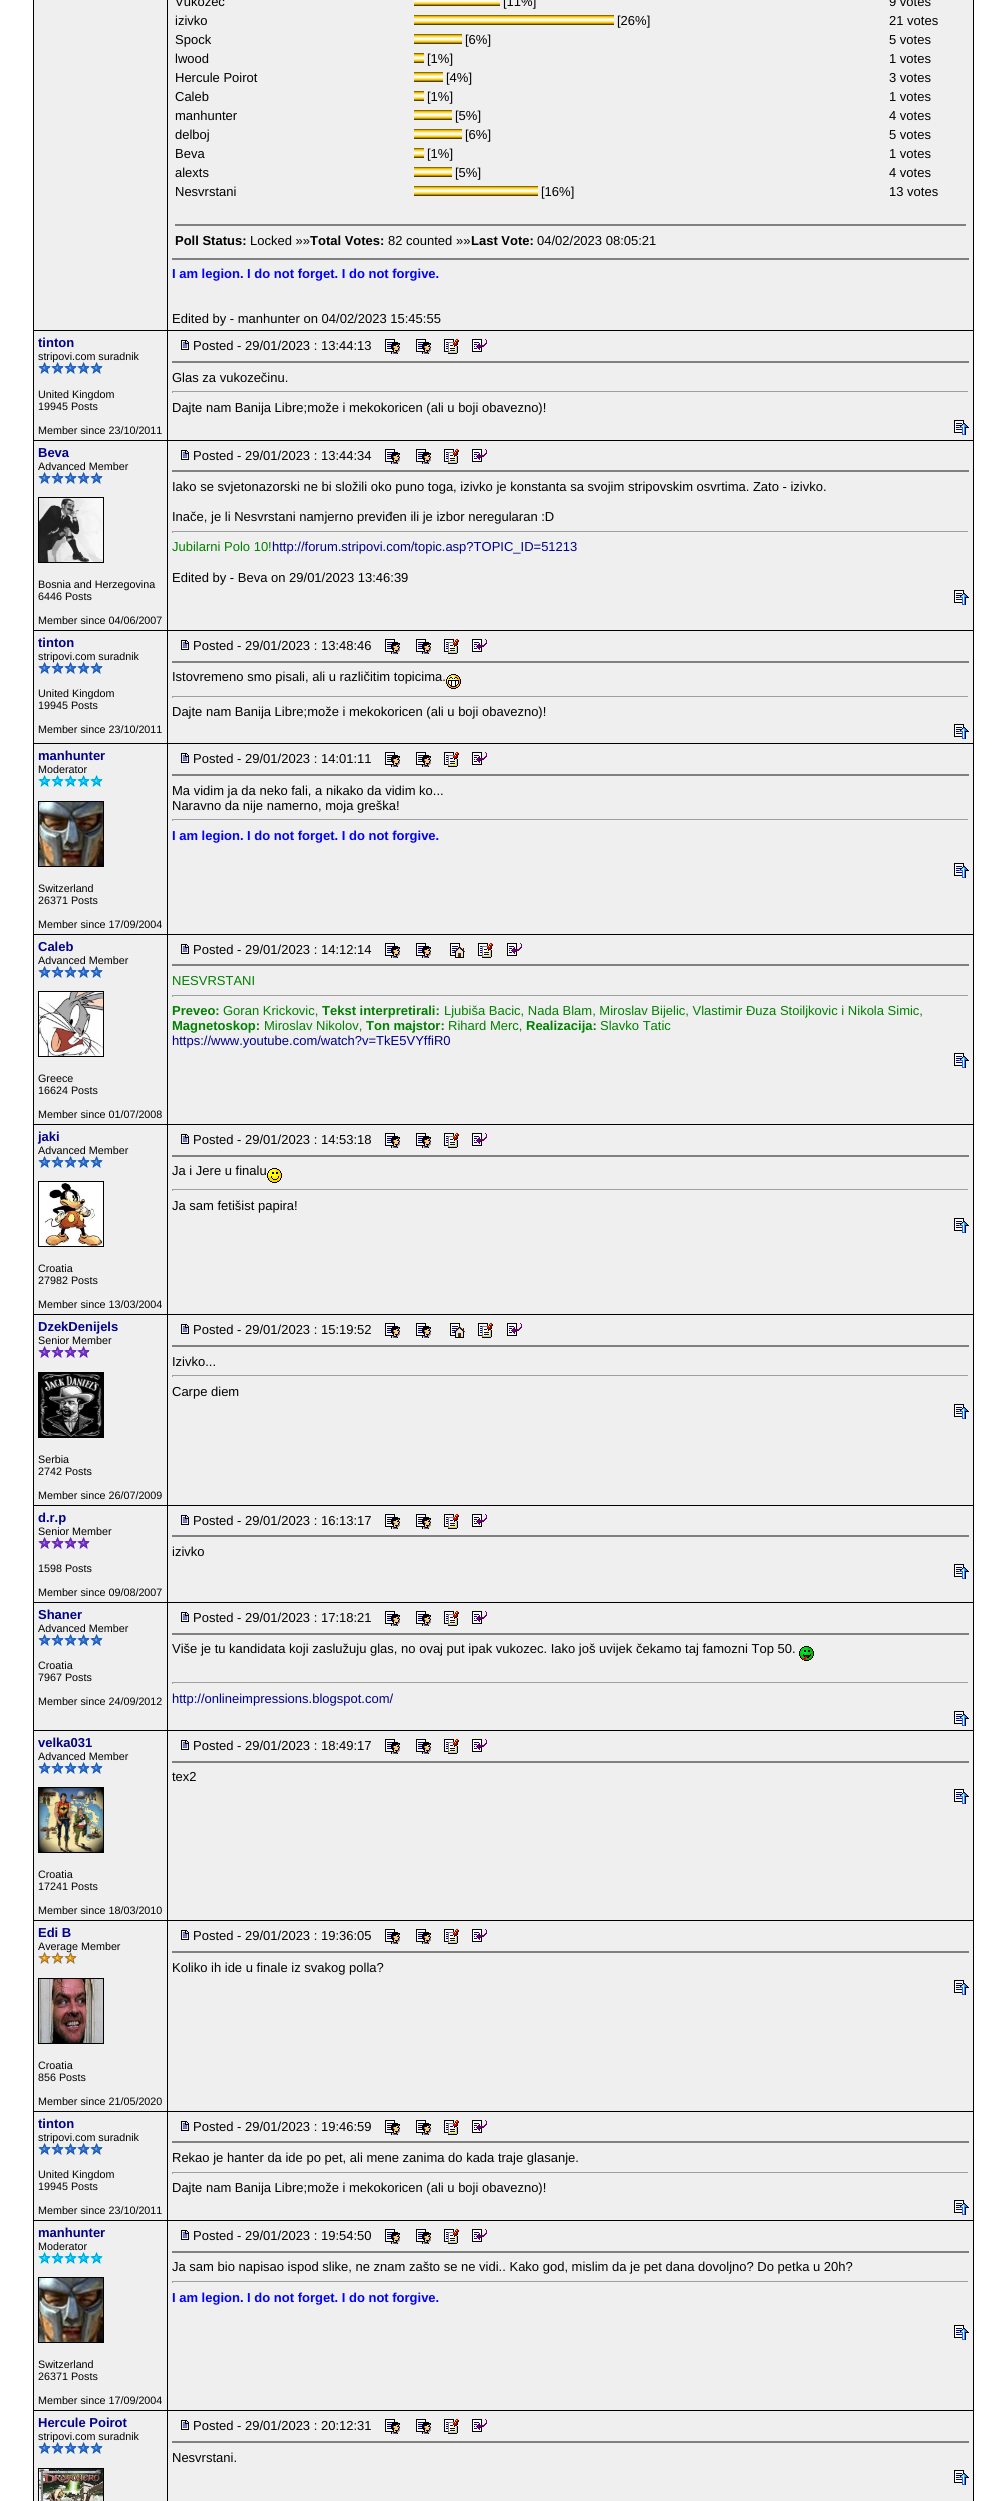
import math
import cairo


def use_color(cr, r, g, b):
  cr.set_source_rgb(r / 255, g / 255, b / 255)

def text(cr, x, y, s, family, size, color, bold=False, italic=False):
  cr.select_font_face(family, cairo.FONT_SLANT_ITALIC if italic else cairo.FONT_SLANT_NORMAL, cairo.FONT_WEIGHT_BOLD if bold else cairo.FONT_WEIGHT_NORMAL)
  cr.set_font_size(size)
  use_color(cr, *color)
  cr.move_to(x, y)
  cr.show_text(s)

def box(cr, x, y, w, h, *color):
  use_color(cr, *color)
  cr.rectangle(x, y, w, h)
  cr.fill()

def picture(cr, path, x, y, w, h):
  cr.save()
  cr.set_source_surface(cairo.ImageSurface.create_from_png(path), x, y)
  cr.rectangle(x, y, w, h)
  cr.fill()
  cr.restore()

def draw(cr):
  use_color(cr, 255, 255, 255)
  cr.paint()
  box(cr, 33, 0, 941, 2501, 0, 0, 0)
  box(cr, 34, 0, 133, 330, 239, 239, 239)
  box(cr, 168, 0, 805, 330, 239, 239, 239)
  picture(cr, "img_01.png", 414, 0, 86, 6)
  picture(cr, "img_02.png", 414, 15, 200, 10)
  picture(cr, "img_03.png", 414, 34, 48, 10)
  picture(cr, "img_04.png", 414, 53, 10, 10)
  picture(cr, "img_05.png", 414, 72, 29, 10)
  picture(cr, "img_04.png", 414, 91, 10, 10)
  picture(cr, "img_06.png", 414, 110, 38, 10)
  picture(cr, "img_03.png", 414, 129, 48, 10)
  picture(cr, "img_04.png", 414, 148, 10, 10)
  picture(cr, "img_06.png", 414, 167, 38, 10)
  picture(cr, "img_07.png", 414, 186, 124, 10)
  box(cr, 175, 224, 791, 2, 128, 128, 128)
  box(cr, 172, 258, 797, 2, 128, 128, 128)
  box(cr, 34, 331, 133, 109, 239, 239, 239)
  box(cr, 168, 331, 805, 109, 239, 239, 239)
  picture(cr, "img_10.png", 181, 340, 8, 10)
  picture(cr, "img_11.png", 385, 339, 15, 15)
  picture(cr, "img_11.png", 416, 339, 15, 15)
  picture(cr, "img_12.png", 444, 339, 15, 15)
  picture(cr, "img_13.png", 472, 339, 15, 13)
  box(cr, 172, 361, 797, 2, 128, 128, 128)
  box(cr, 172, 391, 797, 1, 159, 159, 159)
  box(cr, 968, 391, 1, 2, 238, 238, 238)
  box(cr, 172, 391, 1, 2, 159, 159, 159)
  picture(cr, "img_14.png", 954, 420, 15, 15)
  box(cr, 34, 441, 133, 189, 239, 239, 239)
  picture(cr, "img_08.png", 38, 472, 13, 12)
  picture(cr, "img_08.png", 51, 472, 13, 12)
  picture(cr, "img_08.png", 64, 472, 13, 12)
  picture(cr, "img_08.png", 77, 472, 13, 12)
  picture(cr, "img_08.png", 90, 472, 13, 12)
  cr.rectangle(38.5, 497.5, 65, 65)
  use_color(cr, 0, 0, 0)
  cr.set_line_width(1)
  cr.stroke()
  picture(cr, "img_15.png", 39, 498, 64, 64)
  box(cr, 168, 441, 805, 189, 239, 239, 239)
  picture(cr, "img_10.png", 181, 450, 8, 10)
  picture(cr, "img_11.png", 385, 449, 15, 15)
  picture(cr, "img_11.png", 416, 449, 15, 15)
  picture(cr, "img_12.png", 444, 449, 15, 15)
  picture(cr, "img_13.png", 472, 449, 15, 13)
  box(cr, 172, 470, 797, 2, 128, 128, 128)
  box(cr, 172, 531, 797, 1, 159, 159, 159)
  box(cr, 968, 531, 1, 2, 238, 238, 238)
  box(cr, 172, 531, 1, 2, 159, 159, 159)
  picture(cr, "img_14.png", 954, 590, 15, 15)
  box(cr, 34, 631, 133, 112, 239, 239, 239)
  box(cr, 168, 631, 805, 112, 239, 239, 239)
  picture(cr, "img_10.png", 181, 640, 8, 10)
  picture(cr, "img_11.png", 385, 639, 15, 15)
  picture(cr, "img_11.png", 416, 639, 15, 15)
  picture(cr, "img_12.png", 444, 639, 15, 15)
  picture(cr, "img_13.png", 472, 639, 15, 13)
  box(cr, 172, 661, 797, 2, 128, 128, 128)
  picture(cr, "img_16.png", 446, 674, 15, 15)
  box(cr, 172, 696, 797, 1, 159, 159, 159)
  box(cr, 968, 696, 1, 2, 238, 238, 238)
  box(cr, 172, 696, 1, 2, 159, 159, 159)
  picture(cr, "img_14.png", 954, 724, 15, 15)
  box(cr, 34, 744, 133, 190, 239, 239, 239)
  picture(cr, "img_17.png", 38, 775, 13, 12)
  picture(cr, "img_17.png", 51, 775, 13, 12)
  picture(cr, "img_17.png", 64, 775, 13, 12)
  picture(cr, "img_17.png", 77, 775, 13, 12)
  picture(cr, "img_17.png", 90, 775, 13, 12)
  cr.rectangle(38.5, 801.5, 65, 65)
  use_color(cr, 0, 0, 0)
  cr.stroke()
  picture(cr, "img_18.png", 39, 802, 64, 64)
  box(cr, 168, 744, 805, 190, 239, 239, 239)
  picture(cr, "img_10.png", 181, 753, 8, 10)
  picture(cr, "img_11.png", 385, 752, 15, 15)
  picture(cr, "img_11.png", 416, 752, 15, 15)
  picture(cr, "img_12.png", 444, 752, 15, 15)
  picture(cr, "img_13.png", 472, 752, 15, 13)
  box(cr, 172, 774, 797, 2, 128, 128, 128)
  box(cr, 172, 819, 797, 1, 159, 159, 159)
  box(cr, 968, 819, 1, 2, 238, 238, 238)
  box(cr, 172, 819, 1, 2, 159, 159, 159)
  picture(cr, "img_14.png", 954, 863, 15, 15)
  box(cr, 34, 935, 133, 189, 239, 239, 239)
  picture(cr, "img_08.png", 38, 966, 13, 12)
  picture(cr, "img_08.png", 51, 966, 13, 12)
  picture(cr, "img_08.png", 64, 966, 13, 12)
  picture(cr, "img_08.png", 77, 966, 13, 12)
  picture(cr, "img_08.png", 90, 966, 13, 12)
  cr.rectangle(38.5, 991.5, 65, 65)
  use_color(cr, 0, 0, 0)
  cr.stroke()
  picture(cr, "img_19.png", 39, 992, 64, 64)
  box(cr, 168, 935, 805, 189, 239, 239, 239)
  picture(cr, "img_10.png", 181, 944, 8, 10)
  picture(cr, "img_11.png", 385, 943, 15, 15)
  picture(cr, "img_11.png", 416, 943, 15, 15)
  picture(cr, "img_20.png", 450, 943, 15, 15)
  picture(cr, "img_12.png", 478, 943, 15, 15)
  picture(cr, "img_13.png", 507, 943, 15, 13)
  box(cr, 172, 964, 797, 2, 128, 128, 128)
  box(cr, 172, 995, 797, 1, 159, 159, 159)
  box(cr, 968, 995, 1, 2, 238, 238, 238)
  box(cr, 172, 995, 1, 2, 159, 159, 159)
  picture(cr, "img_14.png", 954, 1053, 15, 15)
  box(cr, 34, 1125, 133, 189, 239, 239, 239)
  picture(cr, "img_08.png", 38, 1156, 13, 12)
  picture(cr, "img_08.png", 51, 1156, 13, 12)
  picture(cr, "img_08.png", 64, 1156, 13, 12)
  picture(cr, "img_08.png", 77, 1156, 13, 12)
  picture(cr, "img_08.png", 90, 1156, 13, 12)
  cr.rectangle(38.5, 1181.5, 65, 65)
  use_color(cr, 0, 0, 0)
  cr.stroke()
  picture(cr, "img_21.png", 39, 1182, 64, 64)
  box(cr, 168, 1125, 805, 189, 239, 239, 239)
  picture(cr, "img_10.png", 181, 1134, 8, 10)
  picture(cr, "img_11.png", 385, 1133, 15, 15)
  picture(cr, "img_11.png", 416, 1133, 15, 15)
  picture(cr, "img_12.png", 444, 1133, 15, 15)
  picture(cr, "img_13.png", 472, 1133, 15, 13)
  box(cr, 172, 1155, 797, 2, 128, 128, 128)
  picture(cr, "img_22.png", 267, 1168, 15, 15)
  box(cr, 172, 1189, 797, 1, 159, 159, 159)
  box(cr, 968, 1189, 1, 2, 238, 238, 238)
  box(cr, 172, 1189, 1, 2, 159, 159, 159)
  picture(cr, "img_14.png", 954, 1218, 15, 15)
  box(cr, 34, 1315, 133, 190, 239, 239, 239)
  picture(cr, "img_23.png", 38, 1346, 13, 12)
  picture(cr, "img_23.png", 51, 1346, 13, 12)
  picture(cr, "img_23.png", 64, 1346, 13, 12)
  picture(cr, "img_23.png", 77, 1346, 13, 12)
  cr.rectangle(38.5, 1372.5, 65, 65)
  use_color(cr, 0, 0, 0)
  cr.stroke()
  picture(cr, "img_24.png", 39, 1373, 64, 64)
  box(cr, 168, 1315, 805, 190, 239, 239, 239)
  picture(cr, "img_10.png", 181, 1324, 8, 10)
  picture(cr, "img_11.png", 385, 1323, 15, 15)
  picture(cr, "img_11.png", 416, 1323, 15, 15)
  picture(cr, "img_20.png", 450, 1323, 15, 15)
  picture(cr, "img_12.png", 478, 1323, 15, 15)
  picture(cr, "img_13.png", 507, 1323, 15, 13)
  box(cr, 172, 1345, 797, 2, 128, 128, 128)
  box(cr, 172, 1375, 797, 1, 159, 159, 159)
  box(cr, 968, 1375, 1, 2, 238, 238, 238)
  box(cr, 172, 1375, 1, 2, 159, 159, 159)
  picture(cr, "img_14.png", 954, 1404, 15, 15)
  box(cr, 34, 1506, 133, 96, 239, 239, 239)
  picture(cr, "img_23.png", 38, 1537, 13, 12)
  picture(cr, "img_23.png", 51, 1537, 13, 12)
  picture(cr, "img_23.png", 64, 1537, 13, 12)
  picture(cr, "img_23.png", 77, 1537, 13, 12)
  box(cr, 168, 1506, 805, 96, 239, 239, 239)
  picture(cr, "img_10.png", 181, 1515, 8, 10)
  picture(cr, "img_11.png", 385, 1514, 15, 15)
  picture(cr, "img_11.png", 416, 1514, 15, 15)
  picture(cr, "img_12.png", 444, 1514, 15, 15)
  picture(cr, "img_13.png", 472, 1514, 15, 13)
  box(cr, 172, 1535, 797, 2, 128, 128, 128)
  picture(cr, "img_14.png", 954, 1564, 15, 15)
  box(cr, 34, 1603, 133, 127, 239, 239, 239)
  picture(cr, "img_08.png", 38, 1634, 13, 12)
  picture(cr, "img_08.png", 51, 1634, 13, 12)
  picture(cr, "img_08.png", 64, 1634, 13, 12)
  picture(cr, "img_08.png", 77, 1634, 13, 12)
  picture(cr, "img_08.png", 90, 1634, 13, 12)
  box(cr, 168, 1603, 805, 127, 239, 239, 239)
  picture(cr, "img_10.png", 181, 1612, 8, 10)
  picture(cr, "img_11.png", 385, 1611, 15, 15)
  picture(cr, "img_11.png", 416, 1611, 15, 15)
  picture(cr, "img_12.png", 444, 1611, 15, 15)
  picture(cr, "img_13.png", 472, 1611, 15, 13)
  box(cr, 172, 1633, 797, 2, 128, 128, 128)
  picture(cr, "img_25.png", 799, 1646, 15, 15)
  box(cr, 172, 1682, 797, 1, 159, 159, 159)
  box(cr, 968, 1682, 1, 2, 238, 238, 238)
  box(cr, 172, 1682, 1, 2, 159, 159, 159)
  picture(cr, "img_14.png", 954, 1711, 15, 15)
  box(cr, 34, 1731, 133, 189, 239, 239, 239)
  picture(cr, "img_08.png", 38, 1762, 13, 12)
  picture(cr, "img_08.png", 51, 1762, 13, 12)
  picture(cr, "img_08.png", 64, 1762, 13, 12)
  picture(cr, "img_08.png", 77, 1762, 13, 12)
  picture(cr, "img_08.png", 90, 1762, 13, 12)
  cr.rectangle(38.5, 1787.5, 65, 65)
  use_color(cr, 0, 0, 0)
  cr.stroke()
  picture(cr, "img_26.png", 39, 1788, 64, 64)
  box(cr, 168, 1731, 805, 189, 239, 239, 239)
  picture(cr, "img_10.png", 181, 1740, 8, 10)
  picture(cr, "img_11.png", 385, 1739, 15, 15)
  picture(cr, "img_11.png", 416, 1739, 15, 15)
  picture(cr, "img_12.png", 444, 1739, 15, 15)
  picture(cr, "img_13.png", 472, 1739, 15, 13)
  box(cr, 172, 1761, 797, 2, 128, 128, 128)
  picture(cr, "img_14.png", 954, 1789, 15, 15)
  box(cr, 34, 1921, 133, 190, 239, 239, 239)
  cr.rectangle(38.5, 1978.5, 65, 65)
  use_color(cr, 0, 0, 0)
  cr.stroke()
  picture(cr, "img_29.png", 39, 1979, 64, 64)
  box(cr, 168, 1921, 805, 190, 239, 239, 239)
  picture(cr, "img_10.png", 181, 1930, 8, 10)
  picture(cr, "img_11.png", 385, 1929, 15, 15)
  picture(cr, "img_11.png", 416, 1929, 15, 15)
  picture(cr, "img_12.png", 444, 1929, 15, 15)
  picture(cr, "img_13.png", 472, 1929, 15, 13)
  box(cr, 172, 1951, 797, 2, 128, 128, 128)
  picture(cr, "img_14.png", 954, 1980, 15, 15)
  box(cr, 34, 2112, 133, 108, 239, 239, 239)
  box(cr, 168, 2112, 805, 108, 239, 239, 239)
  picture(cr, "img_10.png", 181, 2121, 8, 10)
  picture(cr, "img_11.png", 385, 2120, 15, 15)
  picture(cr, "img_11.png", 416, 2120, 15, 15)
  picture(cr, "img_12.png", 444, 2120, 15, 15)
  picture(cr, "img_13.png", 472, 2120, 15, 13)
  box(cr, 172, 2141, 797, 2, 128, 128, 128)
  box(cr, 172, 2172, 797, 1, 159, 159, 159)
  box(cr, 968, 2172, 1, 2, 238, 238, 238)
  box(cr, 172, 2172, 1, 2, 159, 159, 159)
  picture(cr, "img_14.png", 954, 2200, 15, 15)
  box(cr, 34, 2221, 133, 189, 239, 239, 239)
  picture(cr, "img_17.png", 38, 2252, 13, 12)
  picture(cr, "img_17.png", 51, 2252, 13, 12)
  picture(cr, "img_17.png", 64, 2252, 13, 12)
  picture(cr, "img_17.png", 77, 2252, 13, 12)
  picture(cr, "img_17.png", 90, 2252, 13, 12)
  cr.rectangle(38.5, 2277.5, 65, 65)
  use_color(cr, 0, 0, 0)
  cr.stroke()
  picture(cr, "img_18.png", 39, 2278, 64, 64)
  box(cr, 168, 2221, 805, 189, 239, 239, 239)
  picture(cr, "img_10.png", 181, 2230, 8, 10)
  picture(cr, "img_11.png", 385, 2229, 15, 15)
  picture(cr, "img_11.png", 416, 2229, 15, 15)
  picture(cr, "img_12.png", 444, 2229, 15, 15)
  picture(cr, "img_13.png", 472, 2229, 15, 13)
  box(cr, 172, 2251, 797, 2, 128, 128, 128)
  box(cr, 172, 2281, 797, 1, 159, 159, 159)
  box(cr, 968, 2281, 1, 2, 238, 238, 238)
  box(cr, 172, 2281, 1, 2, 159, 159, 159)
  picture(cr, "img_14.png", 954, 2325, 15, 15)
  box(cr, 34, 2411, 133, 90, 239, 239, 239)
  cr.rectangle(38.5, 2468.5, 65, 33)
  use_color(cr, 0, 0, 0)
  cr.stroke()
  picture(cr, "img_30.png", 39, 2469, 64, 32)
  box(cr, 168, 2411, 805, 90, 239, 239, 239)
  picture(cr, "img_10.png", 181, 2420, 8, 10)
  picture(cr, "img_11.png", 385, 2419, 15, 15)
  picture(cr, "img_11.png", 416, 2419, 15, 15)
  picture(cr, "img_12.png", 444, 2419, 15, 15)
  picture(cr, "img_13.png", 472, 2419, 15, 13)
  box(cr, 172, 2441, 797, 2, 128, 128, 128)
  picture(cr, "img_14.png", 954, 2470, 15, 15)
  text(cr, 175, 6, "Vukozec", "Liberation Sans", 13, (0, 0, 0))
  text(cr, 503, 6, "[11%]", "Liberation Sans", 13, (0, 0, 0))
  text(cr, 889, 6, "9 votes", "Liberation Sans", 13, (0, 0, 0))
  text(cr, 175, 25, "izivko", "Liberation Sans", 13, (0, 0, 0))
  text(cr, 617, 25, "[26%]", "Liberation Sans", 13, (0, 0, 0))
  text(cr, 889, 25, "21 votes", "Liberation Sans", 13, (0, 0, 0))
  text(cr, 175, 44, "Spock", "Liberation Sans", 13, (0, 0, 0))
  text(cr, 465, 44, "[6%]", "Liberation Sans", 13, (0, 0, 0))
  text(cr, 889, 44, "5 votes", "Liberation Sans", 13, (0, 0, 0))
  text(cr, 175, 63, "lwood", "Liberation Sans", 13, (0, 0, 0))
  text(cr, 427, 63, "[1%]", "Liberation Sans", 13, (0, 0, 0))
  text(cr, 889, 63, "1 votes", "Liberation Sans", 13, (0, 0, 0))
  text(cr, 175, 82, "Hercule Poirot", "Liberation Sans", 13, (0, 0, 0))
  text(cr, 446, 82, "[4%]", "Liberation Sans", 13, (0, 0, 0))
  text(cr, 889, 82, "3 votes", "Liberation Sans", 13, (0, 0, 0))
  text(cr, 175, 101, "Caleb", "Liberation Sans", 13, (0, 0, 0))
  text(cr, 427, 101, "[1%]", "Liberation Sans", 13, (0, 0, 0))
  text(cr, 889, 101, "1 votes", "Liberation Sans", 13, (0, 0, 0))
  text(cr, 175, 120, "manhunter", "Liberation Sans", 13, (0, 0, 0))
  text(cr, 455, 120, "[5%]", "Liberation Sans", 13, (0, 0, 0))
  text(cr, 889, 120, "4 votes", "Liberation Sans", 13, (0, 0, 0))
  text(cr, 175, 139, "delboj", "Liberation Sans", 13, (0, 0, 0))
  text(cr, 465, 139, "[6%]", "Liberation Sans", 13, (0, 0, 0))
  text(cr, 889, 139, "5 votes", "Liberation Sans", 13, (0, 0, 0))
  text(cr, 175, 158, "Beva", "Liberation Sans", 13, (0, 0, 0))
  text(cr, 427, 158, "[1%]", "Liberation Sans", 13, (0, 0, 0))
  text(cr, 889, 158, "1 votes", "Liberation Sans", 13, (0, 0, 0))
  text(cr, 175, 177, "alexts", "Liberation Sans", 13, (0, 0, 0))
  text(cr, 455, 177, "[5%]", "Liberation Sans", 13, (0, 0, 0))
  text(cr, 889, 177, "4 votes", "Liberation Sans", 13, (0, 0, 0))
  text(cr, 175, 196, "Nesvrstani", "Liberation Sans", 13, (0, 0, 0))
  text(cr, 541, 196, "[16%]", "Liberation Sans", 13, (0, 0, 0))
  text(cr, 889, 196, "13 votes", "Liberation Sans", 13, (0, 0, 0))
  text(cr, 175, 245, "Poll Status:", "Liberation Sans", 13, (0, 0, 0), bold=True)
  text(cr, 250, 245, "Locked »»", "Liberation Sans", 13, (0, 0, 0))
  text(cr, 310, 245, "Total Votes:", "Liberation Sans", 13, (0, 0, 0), bold=True)
  text(cr, 388, 245, "82 counted »»", "Liberation Sans", 13, (0, 0, 0))
  text(cr, 471, 245, "Last Vote:", "Liberation Sans", 13, (0, 0, 0), bold=True)
  text(cr, 537, 245, "04/02/2023 08:05:21", "Liberation Sans", 13, (0, 0, 0))
  text(cr, 172, 278, "I am legion. I do not forget. I do not forgive.", "Liberation Sans", 13, (0, 0, 255), bold=True)
  text(cr, 172, 323, "Edited by - manhunter on 04/02/2023 15:45:55", "Liberation Sans", 13, (0, 0, 0))
  text(cr, 38, 347, "tinton", "Liberation Sans", 13, (0, 0, 139), bold=True)
  text(cr, 38, 360, "stripovi.com suradnik", "Liberation Sans", 10.75, (0, 0, 0))
  picture(cr, "img_08.png", 38, 362, 13, 12)
  picture(cr, "img_09.png", 51, 362, 13, 12)
  picture(cr, "img_08.png", 64, 362, 13, 12)
  picture(cr, "img_08.png", 77, 362, 13, 12)
  picture(cr, "img_08.png", 90, 362, 13, 12)
  text(cr, 38, 398, "United Kingdom", "Liberation Sans", 10.75, (0, 0, 0))
  text(cr, 38, 410, "19945 Posts", "Liberation Sans", 10.75, (0, 0, 0))
  text(cr, 38, 434, "Member since 23/10/2011", "Liberation Sans", 10.75, (0, 0, 0))
  text(cr, 193, 350, "Posted - 29/01/2023 : 13:44:13", "Liberation Sans", 13, (0, 0, 0))
  text(cr, 172, 382, "Glas za vukozečinu.", "Liberation Sans", 13, (0, 0, 0))
  text(cr, 172, 412, "Dajte nam Banija Libre;može i mekokoricen (ali u boji obavezno)!", "Liberation Sans", 13, (0, 0, 0))
  text(cr, 38, 457, "Beva", "Liberation Sans", 13, (0, 0, 139), bold=True)
  text(cr, 38, 470, "Advanced Member", "Liberation Sans", 10.75, (0, 0, 0))
  text(cr, 38, 588, "Bosnia and Herzegovina", "Liberation Sans", 10.75, (0, 0, 0))
  text(cr, 38, 600, "6446 Posts", "Liberation Sans", 10.75, (0, 0, 0))
  text(cr, 38, 624, "Member since 04/06/2007", "Liberation Sans", 10.75, (0, 0, 0))
  text(cr, 193, 460, "Posted - 29/01/2023 : 13:44:34", "Liberation Sans", 13, (0, 0, 0))
  text(cr, 172, 491, "Iako se svjetonazorski ne bi složili oko puno toga, izivko je konstanta sa svojim stripovskim osvrtima. Zato - izivko.", "Liberation Sans", 13, (0, 0, 0))
  text(cr, 172, 521, "Inače, je li Nesvrstani namjerno previđen ili je izbor neregularan :D", "Liberation Sans", 13, (0, 0, 0))
  text(cr, 172, 551, "Jubilarni Polo 10!", "Liberation Sans", 13, (0, 128, 0))
  text(cr, 272, 551, "http://forum.stripovi.com/topic.asp?TOPIC_ID=51213", "Liberation Sans", 13, (0, 0, 139))
  text(cr, 172, 582, "Edited by - Beva on 29/01/2023 13:46:39", "Liberation Sans", 13, (0, 0, 0))
  text(cr, 38, 647, "tinton", "Liberation Sans", 13, (0, 0, 139), bold=True)
  text(cr, 38, 660, "stripovi.com suradnik", "Liberation Sans", 10.75, (0, 0, 0))
  picture(cr, "img_08.png", 38, 662, 13, 12)
  picture(cr, "img_09.png", 51, 662, 13, 12)
  picture(cr, "img_08.png", 64, 662, 13, 12)
  picture(cr, "img_08.png", 77, 662, 13, 12)
  picture(cr, "img_08.png", 90, 662, 13, 12)
  text(cr, 38, 697, "United Kingdom", "Liberation Sans", 10.75, (0, 0, 0))
  text(cr, 38, 709, "19945 Posts", "Liberation Sans", 10.75, (0, 0, 0))
  text(cr, 38, 733, "Member since 23/10/2011", "Liberation Sans", 10.75, (0, 0, 0))
  text(cr, 193, 650, "Posted - 29/01/2023 : 13:48:46", "Liberation Sans", 13, (0, 0, 0))
  text(cr, 172, 681, "Istovremeno smo pisali, ali u različitim topicima.", "Liberation Sans", 13, (0, 0, 0))
  text(cr, 172, 716, "Dajte nam Banija Libre;može i mekokoricen (ali u boji obavezno)!", "Liberation Sans", 13, (0, 0, 0))
  text(cr, 38, 760, "manhunter", "Liberation Sans", 13, (0, 0, 139), bold=True)
  text(cr, 38, 773, "Moderator", "Liberation Sans", 10.75, (0, 0, 0))
  text(cr, 38, 892, "Switzerland", "Liberation Sans", 10.75, (0, 0, 0))
  text(cr, 38, 904, "26371 Posts", "Liberation Sans", 10.75, (0, 0, 0))
  text(cr, 38, 928, "Member since 17/09/2004", "Liberation Sans", 10.75, (0, 0, 0))
  text(cr, 193, 763, "Posted - 29/01/2023 : 14:01:11", "Liberation Sans", 13, (0, 0, 0))
  text(cr, 172, 795, "Ma vidim ja da neko fali, a nikako da vidim ko...", "Liberation Sans", 13, (0, 0, 0))
  text(cr, 172, 810, "Naravno da nije namerno, moja greška!", "Liberation Sans", 13, (0, 0, 0))
  text(cr, 172, 840, "I am legion. I do not forget. I do not forgive.", "Liberation Sans", 13, (0, 0, 255), bold=True)
  text(cr, 38, 951, "Caleb", "Liberation Sans", 13, (0, 0, 139), bold=True)
  text(cr, 38, 964, "Advanced Member", "Liberation Sans", 10.75, (0, 0, 0))
  text(cr, 38, 1082, "Greece", "Liberation Sans", 10.75, (0, 0, 0))
  text(cr, 38, 1094, "16624 Posts", "Liberation Sans", 10.75, (0, 0, 0))
  text(cr, 38, 1118, "Member since 01/07/2008", "Liberation Sans", 10.75, (0, 0, 0))
  text(cr, 193, 954, "Posted - 29/01/2023 : 14:12:14", "Liberation Sans", 13, (0, 0, 0))
  text(cr, 172, 985, "NESVRSTANI", "Liberation Sans", 13, (0, 128, 0))
  text(cr, 172, 1015, "Preveo:", "Liberation Sans", 13, (0, 128, 0), bold=True)
  text(cr, 223, 1015, "Goran Krickovic,", "Liberation Sans", 13, (0, 128, 0))
  text(cr, 322, 1015, "Tekst interpretirali:", "Liberation Sans", 13, (0, 128, 0), bold=True)
  text(cr, 444, 1015, "Ljubiša Bacic, Nada Blam, Miroslav Bijelic, Vlastimir Ðuza Stoiljkovic i Nikola Simic,", "Liberation Sans", 13, (0, 128, 0))
  text(cr, 172, 1030, "Magnetoskop:", "Liberation Sans", 13, (0, 128, 0), bold=True)
  text(cr, 264, 1030, "Miroslav Nikolov,", "Liberation Sans", 13, (0, 128, 0))
  text(cr, 366, 1030, "Ton majstor:", "Liberation Sans", 13, (0, 128, 0), bold=True)
  text(cr, 448, 1030, "Rihard Merc,", "Liberation Sans", 13, (0, 128, 0))
  text(cr, 526, 1030, "Realizacija:", "Liberation Sans", 13, (0, 128, 0), bold=True)
  text(cr, 600, 1030, "Slavko Tatic", "Liberation Sans", 13, (0, 128, 0))
  text(cr, 172, 1045, "https://www.youtube.com/watch?v=TkE5VYffiR0", "Liberation Sans", 13, (0, 0, 139))
  text(cr, 38, 1141, "jaki", "Liberation Sans", 13, (0, 0, 139), bold=True)
  text(cr, 38, 1154, "Advanced Member", "Liberation Sans", 10.75, (0, 0, 0))
  text(cr, 38, 1272, "Croatia", "Liberation Sans", 10.75, (0, 0, 0))
  text(cr, 38, 1284, "27982 Posts", "Liberation Sans", 10.75, (0, 0, 0))
  text(cr, 38, 1308, "Member since 13/03/2004", "Liberation Sans", 10.75, (0, 0, 0))
  text(cr, 193, 1144, "Posted - 29/01/2023 : 14:53:18", "Liberation Sans", 13, (0, 0, 0))
  text(cr, 172, 1175, "Ja i Jere u finalu", "Liberation Sans", 13, (0, 0, 0))
  text(cr, 172, 1210, "Ja sam fetišist papira!", "Liberation Sans", 13, (0, 0, 0))
  text(cr, 38, 1331, "DzekDenijels", "Liberation Sans", 13, (0, 0, 139), bold=True)
  text(cr, 38, 1344, "Senior Member", "Liberation Sans", 10.75, (0, 0, 0))
  text(cr, 38, 1463, "Serbia", "Liberation Sans", 10.75, (0, 0, 0))
  text(cr, 38, 1475, "2742 Posts", "Liberation Sans", 10.75, (0, 0, 0))
  text(cr, 38, 1499, "Member since 26/07/2009", "Liberation Sans", 10.75, (0, 0, 0))
  text(cr, 193, 1334, "Posted - 29/01/2023 : 15:19:52", "Liberation Sans", 13, (0, 0, 0))
  text(cr, 172, 1366, "Izivko...", "Liberation Sans", 13, (0, 0, 0))
  text(cr, 172, 1396, "Carpe diem", "Liberation Sans", 13, (0, 0, 0))
  text(cr, 38, 1522, "d.r.p", "Liberation Sans", 13, (0, 0, 139), bold=True)
  text(cr, 38, 1535, "Senior Member", "Liberation Sans", 10.75, (0, 0, 0))
  text(cr, 38, 1572, "1598 Posts", "Liberation Sans", 10.75, (0, 0, 0))
  text(cr, 38, 1596, "Member since 09/08/2007", "Liberation Sans", 10.75, (0, 0, 0))
  text(cr, 193, 1525, "Posted - 29/01/2023 : 16:13:17", "Liberation Sans", 13, (0, 0, 0))
  text(cr, 172, 1556, "izivko", "Liberation Sans", 13, (0, 0, 0))
  text(cr, 38, 1619, "Shaner", "Liberation Sans", 13, (0, 0, 139), bold=True)
  text(cr, 38, 1632, "Advanced Member", "Liberation Sans", 10.75, (0, 0, 0))
  text(cr, 38, 1669, "Croatia", "Liberation Sans", 10.75, (0, 0, 0))
  text(cr, 38, 1681, "7967 Posts", "Liberation Sans", 10.75, (0, 0, 0))
  text(cr, 38, 1705, "Member since 24/09/2012", "Liberation Sans", 10.75, (0, 0, 0))
  text(cr, 193, 1622, "Posted - 29/01/2023 : 17:18:21", "Liberation Sans", 13, (0, 0, 0))
  text(cr, 172, 1653, "Više je tu kandidata koji zaslužuju glas, no ovaj put ipak vukozec. Iako još uvijek čekamo taj famozni Top 50.", "Liberation Sans", 13, (0, 0, 0))
  text(cr, 172, 1703, "http://onlineimpressions.blogspot.com/", "Liberation Sans", 13, (0, 0, 139))
  text(cr, 38, 1747, "velka031", "Liberation Sans", 13, (0, 0, 139), bold=True)
  text(cr, 38, 1760, "Advanced Member", "Liberation Sans", 10.75, (0, 0, 0))
  text(cr, 38, 1878, "Croatia", "Liberation Sans", 10.75, (0, 0, 0))
  text(cr, 38, 1890, "17241 Posts", "Liberation Sans", 10.75, (0, 0, 0))
  text(cr, 38, 1914, "Member since 18/03/2010", "Liberation Sans", 10.75, (0, 0, 0))
  text(cr, 193, 1750, "Posted - 29/01/2023 : 18:49:17", "Liberation Sans", 13, (0, 0, 0))
  text(cr, 172, 1781, "tex2", "Liberation Sans", 13, (0, 0, 0))
  text(cr, 38, 1937, "Edi B", "Liberation Sans", 13, (0, 0, 139), bold=True)
  text(cr, 38, 1950, "Average Member", "Liberation Sans", 10.75, (0, 0, 0))
  picture(cr, "img_27.png", 38, 1952, 13, 12)
  picture(cr, "img_27.png", 51, 1952, 13, 12)
  picture(cr, "img_28.png", 64, 1952, 13, 12)
  text(cr, 38, 2069, "Croatia", "Liberation Sans", 10.75, (0, 0, 0))
  text(cr, 38, 2081, "856 Posts", "Liberation Sans", 10.75, (0, 0, 0))
  text(cr, 38, 2105, "Member since 21/05/2020", "Liberation Sans", 10.75, (0, 0, 0))
  text(cr, 193, 1940, "Posted - 29/01/2023 : 19:36:05", "Liberation Sans", 13, (0, 0, 0))
  text(cr, 172, 1972, "Koliko ih ide u finale iz svakog polla?", "Liberation Sans", 13, (0, 0, 0))
  text(cr, 38, 2128, "tinton", "Liberation Sans", 13, (0, 0, 139), bold=True)
  text(cr, 38, 2141, "stripovi.com suradnik", "Liberation Sans", 10.75, (0, 0, 0))
  picture(cr, "img_08.png", 38, 2143, 13, 12)
  picture(cr, "img_09.png", 51, 2143, 13, 12)
  picture(cr, "img_08.png", 64, 2143, 13, 12)
  picture(cr, "img_08.png", 77, 2143, 13, 12)
  picture(cr, "img_08.png", 90, 2143, 13, 12)
  text(cr, 38, 2178, "United Kingdom", "Liberation Sans", 10.75, (0, 0, 0))
  text(cr, 38, 2190, "19945 Posts", "Liberation Sans", 10.75, (0, 0, 0))
  text(cr, 38, 2214, "Member since 23/10/2011", "Liberation Sans", 10.75, (0, 0, 0))
  text(cr, 193, 2131, "Posted - 29/01/2023 : 19:46:59", "Liberation Sans", 13, (0, 0, 0))
  text(cr, 172, 2162, "Rekao je hanter da ide po pet, ali mene zanima do kada traje glasanje.", "Liberation Sans", 13, (0, 0, 0))
  text(cr, 172, 2192, "Dajte nam Banija Libre;može i mekokoricen (ali u boji obavezno)!", "Liberation Sans", 13, (0, 0, 0))
  text(cr, 38, 2237, "manhunter", "Liberation Sans", 13, (0, 0, 139), bold=True)
  text(cr, 38, 2250, "Moderator", "Liberation Sans", 10.75, (0, 0, 0))
  text(cr, 38, 2368, "Switzerland", "Liberation Sans", 10.75, (0, 0, 0))
  text(cr, 38, 2380, "26371 Posts", "Liberation Sans", 10.75, (0, 0, 0))
  text(cr, 38, 2404, "Member since 17/09/2004", "Liberation Sans", 10.75, (0, 0, 0))
  text(cr, 193, 2240, "Posted - 29/01/2023 : 19:54:50", "Liberation Sans", 13, (0, 0, 0))
  text(cr, 172, 2271, "Ja sam bio napisao ispod slike, ne znam zašto se ne vidi.. Kako god, mislim da je pet dana dovoljno? Do petka u 20h?", "Liberation Sans", 13, (0, 0, 0))
  text(cr, 172, 2302, "I am legion. I do not forget. I do not forgive.", "Liberation Sans", 13, (0, 0, 255), bold=True)
  text(cr, 38, 2427, "Hercule Poirot", "Liberation Sans", 13, (0, 0, 139), bold=True)
  text(cr, 38, 2440, "stripovi.com suradnik", "Liberation Sans", 10.75, (0, 0, 0))
  picture(cr, "img_08.png", 38, 2442, 13, 12)
  picture(cr, "img_09.png", 51, 2442, 13, 12)
  picture(cr, "img_08.png", 64, 2442, 13, 12)
  picture(cr, "img_08.png", 77, 2442, 13, 12)
  picture(cr, "img_08.png", 90, 2442, 13, 12)
  text(cr, 193, 2430, "Posted - 29/01/2023 : 20:12:31", "Liberation Sans", 13, (0, 0, 0))
  text(cr, 172, 2462, "Nesvrstani.", "Liberation Sans", 13, (0, 0, 0))


surface = cairo.ImageSurface(cairo.FORMAT_RGB24, 1007, 2501)
cr = cairo.Context(surface)
options = cairo.FontOptions()
options.set_hint_metrics(cairo.HINT_METRICS_OFF)
options.set_hint_style(cairo.HINT_STYLE_NONE)
cr.set_font_options(options)
cr.set_miter_limit(4)
draw(cr)
surface.write_to_png("out.png")
